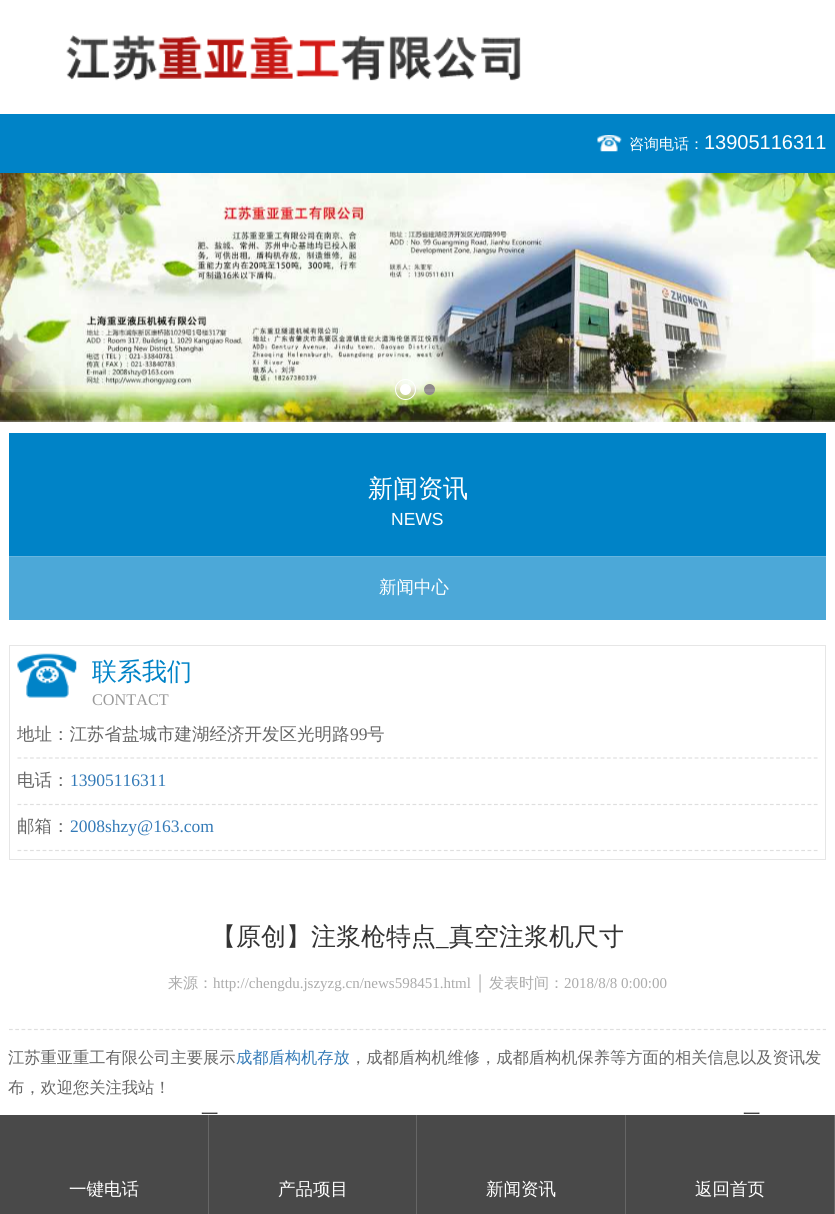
import math
import cairo


def use_color(cr, r, g, b):
  cr.set_source_rgb(r / 255, g / 255, b / 255)

def text(cr, x, y, s, family, size, color, bold=False, italic=False):
  cr.select_font_face(family, cairo.FONT_SLANT_ITALIC if italic else cairo.FONT_SLANT_NORMAL, cairo.FONT_WEIGHT_BOLD if bold else cairo.FONT_WEIGHT_NORMAL)
  cr.set_font_size(size)
  use_color(cr, *color)
  cr.move_to(x, y)
  cr.show_text(s)

def box(cr, x, y, w, h, *color):
  use_color(cr, *color)
  cr.rectangle(x, y, w, h)
  cr.fill()

def picture(cr, path, x, y, w, h):
  cr.save()
  cr.set_source_surface(cairo.ImageSurface.create_from_png(path), x, y)
  cr.rectangle(x, y, w, h)
  cr.fill()
  cr.restore()

def draw(cr):
  use_color(cr, 255, 255, 255)
  cr.paint()
  picture(cr, "img_01.png", 66, 35, 455, 46)
  box(cr, 0, 114, 835, 59, 0, 131, 199)
  picture(cr, "img_02.png", 597, 135, 25, 17)
  picture(cr, "img_03.png", 0, 173, 835, 249)
  use_color(cr, 255, 255, 255)
  cr.arc(405.5, 389.5, 5.5, 0, 2 * math.pi)
  cr.fill()
  cr.arc(405.5, 389.5, 10, 0, 2 * math.pi)
  cr.set_line_width(1)
  cr.stroke()
  use_color(cr, 143, 137, 139)
  cr.arc(429.5, 389.5, 5.5, 0, 2 * math.pi)
  cr.fill()
  cr.set_source_rgba(1, 1, 1, 0.1)
  cr.rectangle(0, 389, 835, 3)
  cr.fill()
  box(cr, 9, 433, 817, 123, 0, 131, 199)
  box(cr, 9, 557, 817, 63, 76, 168, 216)
  box(cr, 9, 556, 817, 1, 103, 181, 222)
  cr.rectangle(9.5, 645.5, 816, 214)
  use_color(cr, 230, 230, 230)
  cr.stroke()
  picture(cr, "img_04.png", 17, 653, 60, 45)
  cr.new_path()
  cr.move_to(17.5, 758)
  cr.line_to(817.5, 758)
  use_color(cr, 223, 223, 223)
  cr.set_line_width(1.2)
  cr.set_dash([3.75, 2.52])
  cr.stroke()
  cr.new_path()
  cr.move_to(17.5, 804.5)
  cr.line_to(817.5, 804.5)
  cr.stroke()
  cr.new_path()
  cr.move_to(17.5, 850.5)
  cr.line_to(817.5, 850.5)
  cr.stroke()
  cr.new_path()
  cr.move_to(9, 1029.5)
  cr.line_to(826, 1029.5)
  cr.set_dash([3.75, 2.51])
  cr.stroke()
  box(cr, 0, 1115, 208, 99, 73, 73, 73)
  box(cr, 208, 1115, 1, 99, 102, 102, 102)
  box(cr, 209, 1115, 416, 99, 73, 73, 73)
  box(cr, 416, 1115, 1, 99, 102, 102, 102)
  box(cr, 625, 1115, 1, 99, 102, 102, 102)
  box(cr, 626, 1115, 208, 99, 73, 73, 73)
  box(cr, 834, 1115, 1, 99, 102, 102, 102)
  text(cr, 629, 149, "咨询电话：", "WenQuanYi Zen Hei Medium", 15, (255, 255, 255))
  text(cr, 704, 149, "13905116311", "Liberation Sans", 20, (255, 255, 255))
  text(cr, 368, 497, "新闻资讯", "WenQuanYi Zen Hei Medium", 25, (255, 255, 255))
  text(cr, 391, 525, "NEWS", "Liberation Sans", 17.5, (255, 255, 255))
  text(cr, 379, 593, "新闻中心", "WenQuanYi Zen Hei Medium", 17.5, (255, 255, 255))
  text(cr, 92, 680, "联系我们", "WenQuanYi Zen Hei Medium", 25, (0, 131, 199))
  text(cr, 92, 705, "CONTACT", "Liberation Serif", 16.25, (153, 153, 153))
  text(cr, 17, 740, "地址：江苏省盐城市建湖经济开发区光明路", "WenQuanYi Zen Hei Medium", 17.5, (102, 102, 102))
  text(cr, 350, 740, "99", "Liberation Serif", 17.5, (102, 102, 102))
  text(cr, 367, 740, "号", "WenQuanYi Zen Hei Medium", 17.5, (102, 102, 102))
  text(cr, 17, 786, "电话：", "WenQuanYi Zen Hei Medium", 17.5, (102, 102, 102))
  text(cr, 70, 786, "13905116311", "Liberation Serif", 17.5, (51, 122, 183))
  text(cr, 17, 832, "邮箱：", "WenQuanYi Zen Hei Medium", 17.5, (102, 102, 102))
  text(cr, 70, 832, "2008shzy@163.com", "Liberation Serif", 17.5, (51, 122, 183))
  text(cr, 211, 945, "【原创】注浆枪特点", "WenQuanYi Zen Hei Medium", 25, (51, 51, 51))
  text(cr, 436, 945, "_", "Liberation Serif", 25, (51, 51, 51))
  text(cr, 449, 945, "真空注浆机尺寸", "WenQuanYi Zen Hei Medium", 25, (51, 51, 51))
  text(cr, 168, 988, "来源：", "WenQuanYi Zen Hei Medium", 15, (171, 171, 171))
  text(cr, 213, 988, "http://chengdu.jszyzg.cn/news598451.html │", "Liberation Serif", 15, (171, 171, 171))
  text(cr, 489, 988, "发表时间：", "WenQuanYi Zen Hei Medium", 15, (171, 171, 171))
  text(cr, 564, 988, "2018/8/8 0:00:00", "Liberation Serif", 15, (171, 171, 171))
  text(cr, 8, 1063, "江苏重亚重工有限公司主要展示", "WenQuanYi Zen Hei Medium", 16.25, (102, 102, 102))
  text(cr, 236, 1063, "成都盾构机存放", "WenQuanYi Zen Hei Medium", 16.25, (51, 122, 183))
  text(cr, 350, 1063, "，成都盾构机维修，成都盾构机保养等方面的相关信息以及资讯发", "WenQuanYi Zen Hei Medium", 16.25, (102, 102, 102))
  text(cr, 8, 1093, "布，欢迎您关注我站！", "WenQuanYi Zen Hei Medium", 16.25, (102, 102, 102))
  text(cr, 201, 1120, "一", "WenQuanYi Zen Hei Medium", 17.5, (51, 51, 51))
  text(cr, 743, 1120, "一", "WenQuanYi Zen Hei Medium", 17.5, (51, 51, 51))
  text(cr, 69, 1195, "一键电话", "WenQuanYi Zen Hei Medium", 17.5, (255, 255, 255))
  text(cr, 278, 1195, "产品项目", "WenQuanYi Zen Hei Medium", 17.5, (255, 255, 255))
  text(cr, 486, 1195, "新闻资讯", "WenQuanYi Zen Hei Medium", 17.5, (255, 255, 255))
  text(cr, 695, 1195, "返回首页", "WenQuanYi Zen Hei Medium", 17.5, (255, 255, 255))


surface = cairo.ImageSurface(cairo.FORMAT_RGB24, 835, 1214)
cr = cairo.Context(surface)
options = cairo.FontOptions()
options.set_hint_metrics(cairo.HINT_METRICS_OFF)
options.set_hint_style(cairo.HINT_STYLE_NONE)
cr.set_font_options(options)
cr.set_miter_limit(4)
draw(cr)
surface.write_to_png("out.png")
